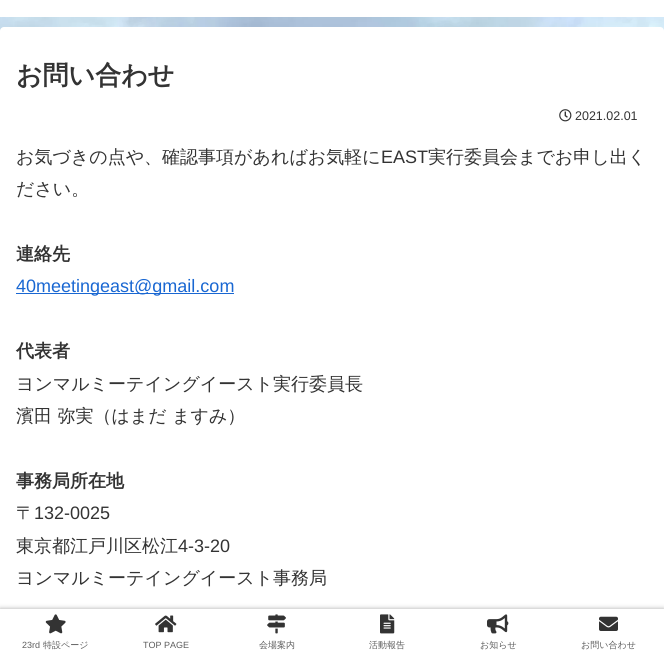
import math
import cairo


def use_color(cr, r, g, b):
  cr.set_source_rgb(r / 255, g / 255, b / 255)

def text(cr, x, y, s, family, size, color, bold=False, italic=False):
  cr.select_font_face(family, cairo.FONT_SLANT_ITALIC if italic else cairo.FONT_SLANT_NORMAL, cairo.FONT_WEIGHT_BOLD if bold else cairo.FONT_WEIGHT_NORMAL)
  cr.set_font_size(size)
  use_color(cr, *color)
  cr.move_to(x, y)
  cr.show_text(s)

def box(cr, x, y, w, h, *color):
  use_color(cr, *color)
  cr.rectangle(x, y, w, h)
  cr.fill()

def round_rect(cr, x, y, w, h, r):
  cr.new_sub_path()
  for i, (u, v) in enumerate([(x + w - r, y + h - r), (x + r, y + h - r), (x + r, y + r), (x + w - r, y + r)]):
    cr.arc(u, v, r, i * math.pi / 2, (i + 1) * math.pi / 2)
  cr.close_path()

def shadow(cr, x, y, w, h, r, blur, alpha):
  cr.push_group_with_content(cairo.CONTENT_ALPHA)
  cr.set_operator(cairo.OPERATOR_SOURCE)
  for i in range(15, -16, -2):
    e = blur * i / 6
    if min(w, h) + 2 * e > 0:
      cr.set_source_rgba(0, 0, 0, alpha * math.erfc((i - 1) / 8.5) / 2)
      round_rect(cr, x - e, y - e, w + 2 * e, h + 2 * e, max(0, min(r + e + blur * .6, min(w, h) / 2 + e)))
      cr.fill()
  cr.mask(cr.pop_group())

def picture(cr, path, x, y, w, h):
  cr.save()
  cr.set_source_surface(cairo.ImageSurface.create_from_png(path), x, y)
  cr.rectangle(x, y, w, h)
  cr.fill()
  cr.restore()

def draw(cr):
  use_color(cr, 255, 255, 255)
  cr.paint()
  picture(cr, "img_01.png", 0, 17, 664, 14)
  use_color(cr, 255, 255, 255)
  round_rect(cr, 0, 27, 664, 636, 4)
  cr.fill()
  picture(cr, "img_02.png", 559, 109, 13, 13)
  box(cr, 16, 293, 218, 1, 25, 103, 210)
  use_color(cr, 169, 169, 169)
  shadow(cr, 0, 609, 664, 50, 0, 2.5, 1)
  box(cr, 0, 609, 664, 50, 255, 255, 255)
  picture(cr, "img_03.png", 45, 614, 21, 20)
  picture(cr, "img_04.png", 155, 615, 22, 18)
  picture(cr, "img_05.png", 267, 614, 19, 20)
  picture(cr, "img_06.png", 380, 614, 15, 20)
  picture(cr, "img_07.png", 487, 614, 22, 20)
  picture(cr, "img_08.png", 599, 616, 19, 15)
  text(cr, 16, 84, "お問い合わせ", "WenQuanYi Zen Hei", 26, (51, 51, 51), bold=True)
  text(cr, 575, 120, "2021.02.01", "Liberation Sans", 12.5, (51, 51, 51))
  text(cr, 16, 163, "お気づきの点や、確認事項があればお気軽に", "WenQuanYi Zen Hei Medium", 18, (51, 51, 51))
  text(cr, 381, 163, "EAST", "Liberation Sans", 18, (51, 51, 51))
  text(cr, 428, 163, "実行委員会までお申し出く", "WenQuanYi Zen Hei Medium", 18, (51, 51, 51))
  text(cr, 16, 195, "ださい。", "WenQuanYi Zen Hei Medium", 18, (51, 51, 51))
  text(cr, 16, 260, "連絡先", "WenQuanYi Zen Hei", 18, (51, 51, 51), bold=True)
  text(cr, 16, 292, "40meetingeast@gmail.com", "Liberation Sans", 18, (25, 103, 210))
  text(cr, 16, 357, "代表者", "WenQuanYi Zen Hei", 18, (51, 51, 51), bold=True)
  text(cr, 16, 390, "ヨンマルミーテイングイースト実行委員長", "WenQuanYi Zen Hei Medium", 18, (51, 51, 51))
  text(cr, 16, 422, "濱田 弥実（はまだ ますみ）", "WenQuanYi Zen Hei Medium", 18, (51, 51, 51))
  text(cr, 16, 487, "事務局所在地", "WenQuanYi Zen Hei", 18, (51, 51, 51), bold=True)
  text(cr, 16, 519, "〒", "WenQuanYi Zen Hei Medium", 18, (51, 51, 51))
  text(cr, 34, 519, "132-0025", "Liberation Sans", 18, (51, 51, 51))
  text(cr, 16, 552, "東京都江戸川区松江", "WenQuanYi Zen Hei Medium", 18, (51, 51, 51))
  text(cr, 178, 552, "4-3-20", "Liberation Sans", 18, (51, 51, 51))
  text(cr, 16, 584, "ヨンマルミーテイングイースト事務局", "WenQuanYi Zen Hei Medium", 18, (51, 51, 51))
  text(cr, 22, 648, "23rd", "Liberation Sans", 9, (92, 92, 92))
  text(cr, 43, 648, "特設ページ", "WenQuanYi Zen Hei Medium", 9, (92, 92, 92))
  text(cr, 143, 648, "TOP PAGE", "Liberation Sans", 9, (92, 92, 92))
  text(cr, 259, 648, "会場案内", "WenQuanYi Zen Hei Medium", 9, (92, 92, 92))
  text(cr, 369, 648, "活動報告", "WenQuanYi Zen Hei Medium", 9, (92, 92, 92))
  text(cr, 480, 648, "お知らせ", "WenQuanYi Zen Hei Medium", 9, (92, 92, 92))
  text(cr, 581, 648, "お問い合わせ", "WenQuanYi Zen Hei Medium", 9, (92, 92, 92))


surface = cairo.ImageSurface(cairo.FORMAT_RGB24, 664, 659)
cr = cairo.Context(surface)
options = cairo.FontOptions()
options.set_hint_metrics(cairo.HINT_METRICS_OFF)
options.set_hint_style(cairo.HINT_STYLE_NONE)
cr.set_font_options(options)
cr.set_miter_limit(4)
draw(cr)
surface.write_to_png("out.png")
